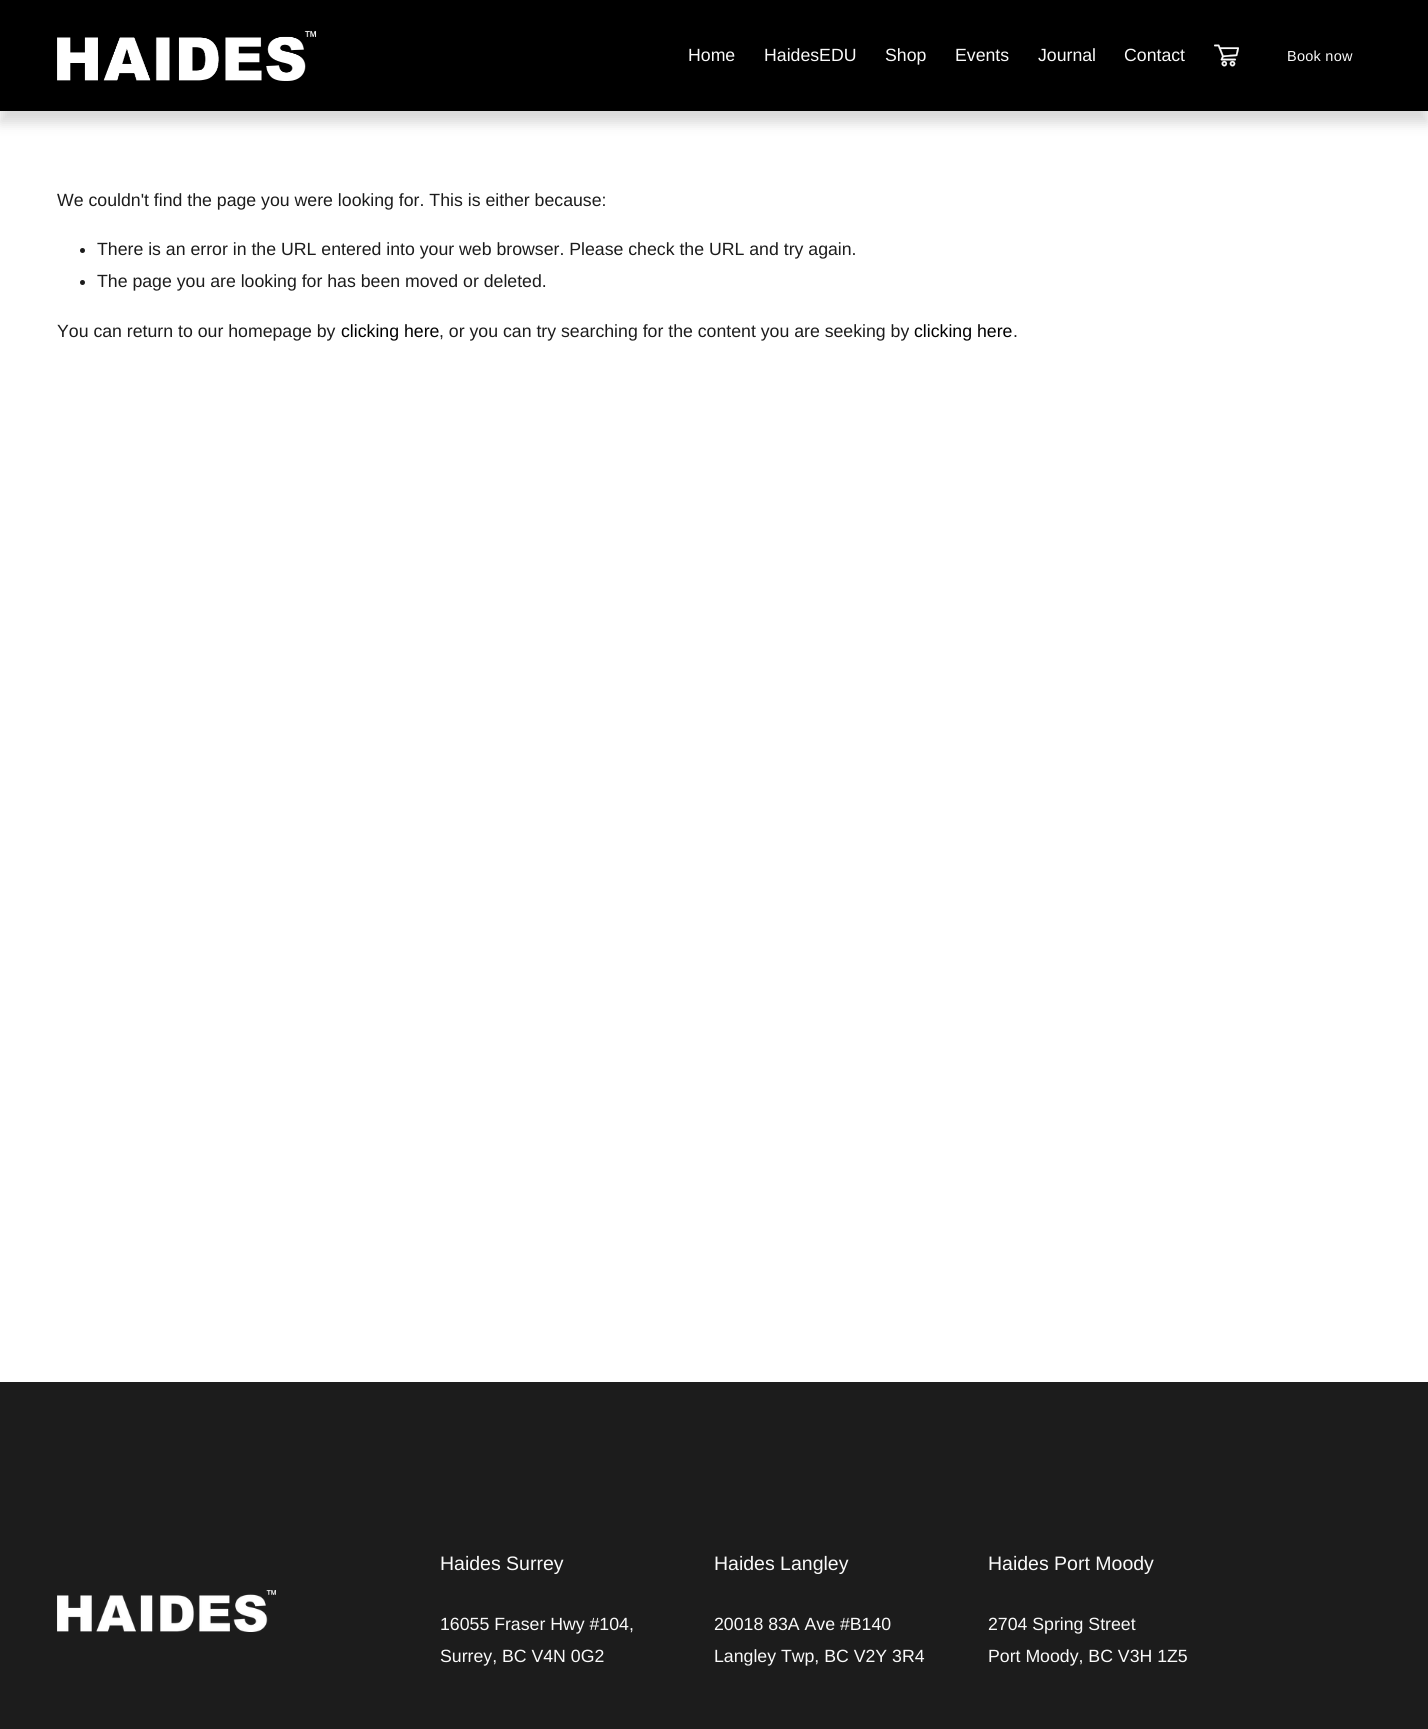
import math
import cairo


def use_color(cr, r, g, b):
  cr.set_source_rgb(r / 255, g / 255, b / 255)

def text(cr, x, y, s, family, size, color, bold=False, italic=False):
  cr.select_font_face(family, cairo.FONT_SLANT_ITALIC if italic else cairo.FONT_SLANT_NORMAL, cairo.FONT_WEIGHT_BOLD if bold else cairo.FONT_WEIGHT_NORMAL)
  cr.set_font_size(size)
  use_color(cr, *color)
  cr.move_to(x, y)
  cr.show_text(s)

def spaced_text(cr, x, y, s, letter, word):
  cr.move_to(x, y)
  for ch in s:
    cr.show_text(ch)
    cr.rel_move_to(letter + word * (ch == ' '), 0)

def box(cr, x, y, w, h, *color):
  use_color(cr, *color)
  cr.rectangle(x, y, w, h)
  cr.fill()

def round_rect(cr, x, y, w, h, r):
  cr.new_sub_path()
  for i, (u, v) in enumerate([(x + w - r, y + h - r), (x + r, y + h - r), (x + r, y + r), (x + w - r, y + r)]):
    cr.arc(u, v, r, i * math.pi / 2, (i + 1) * math.pi / 2)
  cr.close_path()

def shadow(cr, x, y, w, h, r, blur, alpha):
  cr.push_group_with_content(cairo.CONTENT_ALPHA)
  cr.set_operator(cairo.OPERATOR_SOURCE)
  for i in range(15, -16, -2):
    e = blur * i / 6
    if min(w, h) + 2 * e > 0:
      cr.set_source_rgba(0, 0, 0, alpha * math.erfc((i - 1) / 8.5) / 2)
      round_rect(cr, x - e, y - e, w + 2 * e, h + 2 * e, max(0, min(r + e + blur * .6, min(w, h) / 2 + e)))
      cr.fill()
  cr.mask(cr.pop_group())

def picture(cr, path, x, y, w, h):
  cr.save()
  cr.set_source_surface(cairo.ImageSurface.create_from_png(path), x, y)
  cr.rectangle(x, y, w, h)
  cr.fill()
  cr.restore()

def draw(cr):
  use_color(cr, 255, 255, 255)
  cr.paint()
  use_color(cr, 217, 217, 217)
  shadow(cr, 0, 12, 1428, 111, 0, 6, 1)
  box(cr, 0, 0, 1428, 111, 0, 0, 0)
  picture(cr, "img_01.png", 57, 30, 260, 51)
  picture(cr, "img_02.png", 1214, 44, 25, 23)
  use_color(cr, 28, 28, 28)
  cr.arc(82.5, 250.5, 2.5, 0, 2 * math.pi)
  cr.fill()
  cr.arc(82.5, 282.5, 2.5, 0, 2 * math.pi)
  cr.fill()
  box(cr, 0, 1382, 1428, 347, 28, 28, 28)
  picture(cr, "img_03.png", 57, 1590, 219, 42)
  text(cr, 688, 61, "Home", "Liberation Sans", 17.7, (250, 250, 250))
  text(cr, 764, 61, "HaidesEDU", "Liberation Sans", 17.7, (250, 250, 250))
  text(cr, 885, 61, "Shop", "Liberation Sans", 17.7, (250, 250, 250))
  text(cr, 955, 61, "Events", "Liberation Sans", 17.7, (250, 250, 250))
  text(cr, 1038, 61, "Journal", "Liberation Sans", 17.7, (250, 250, 250))
  text(cr, 1124, 61, "Contact", "Liberation Sans", 17.7, (250, 250, 250))
  cr.set_font_size(14.5)
  spaced_text(cr, 1287, 61, "Book now", 0.25, 0)
  text(cr, 57, 206, "We couldn't find the page you were looking for. This is either because:", "Liberation Sans", 17.7, (28, 28, 28))
  text(cr, 97, 255, "There is an error in the URL entered into your web browser. Please check the URL and try again.", "Liberation Sans", 17.7, (28, 28, 28))
  text(cr, 97, 287, "The page you are looking for has been moved or deleted.", "Liberation Sans", 17.7, (28, 28, 28))
  text(cr, 57, 337, "You can return to our homepage by", "Liberation Sans", 17.7, (28, 28, 28))
  text(cr, 341, 337, "clicking here", "Liberation Sans", 17.7, (0, 0, 0))
  text(cr, 439, 337, ", or you can try searching for the content you are seeking by", "Liberation Sans", 17.7, (28, 28, 28))
  text(cr, 914, 337, "clicking here", "Liberation Sans", 17.7, (0, 0, 0))
  text(cr, 1013, 337, ".", "Liberation Sans", 17.7, (28, 28, 28))
  text(cr, 440, 1570, "Haides Surrey", "Liberation Sans", 19.5, (250, 250, 250))
  text(cr, 440, 1630, "16055 Fraser Hwy #104,", "Liberation Sans", 17.7, (250, 250, 250))
  text(cr, 440, 1662, "Surrey, BC V4N 0G2", "Liberation Sans", 17.7, (250, 250, 250))
  text(cr, 714, 1570, "Haides Langley", "Liberation Sans", 19.5, (250, 250, 250))
  text(cr, 714, 1630, "20018 83A Ave #B140", "Liberation Sans", 17.7, (250, 250, 250))
  text(cr, 714, 1662, "Langley Twp, BC V2Y 3R4", "Liberation Sans", 17.7, (250, 250, 250))
  text(cr, 988, 1570, "Haides Port Moody", "Liberation Sans", 19.5, (250, 250, 250))
  text(cr, 988, 1630, "2704 Spring Street", "Liberation Sans", 17.7, (250, 250, 250))
  text(cr, 988, 1662, "Port Moody, BC V3H 1Z5", "Liberation Sans", 17.7, (250, 250, 250))


surface = cairo.ImageSurface(cairo.FORMAT_RGB24, 1428, 1729)
cr = cairo.Context(surface)
options = cairo.FontOptions()
options.set_hint_metrics(cairo.HINT_METRICS_OFF)
options.set_hint_style(cairo.HINT_STYLE_NONE)
cr.set_font_options(options)
cr.set_miter_limit(4)
draw(cr)
surface.write_to_png("out.png")
